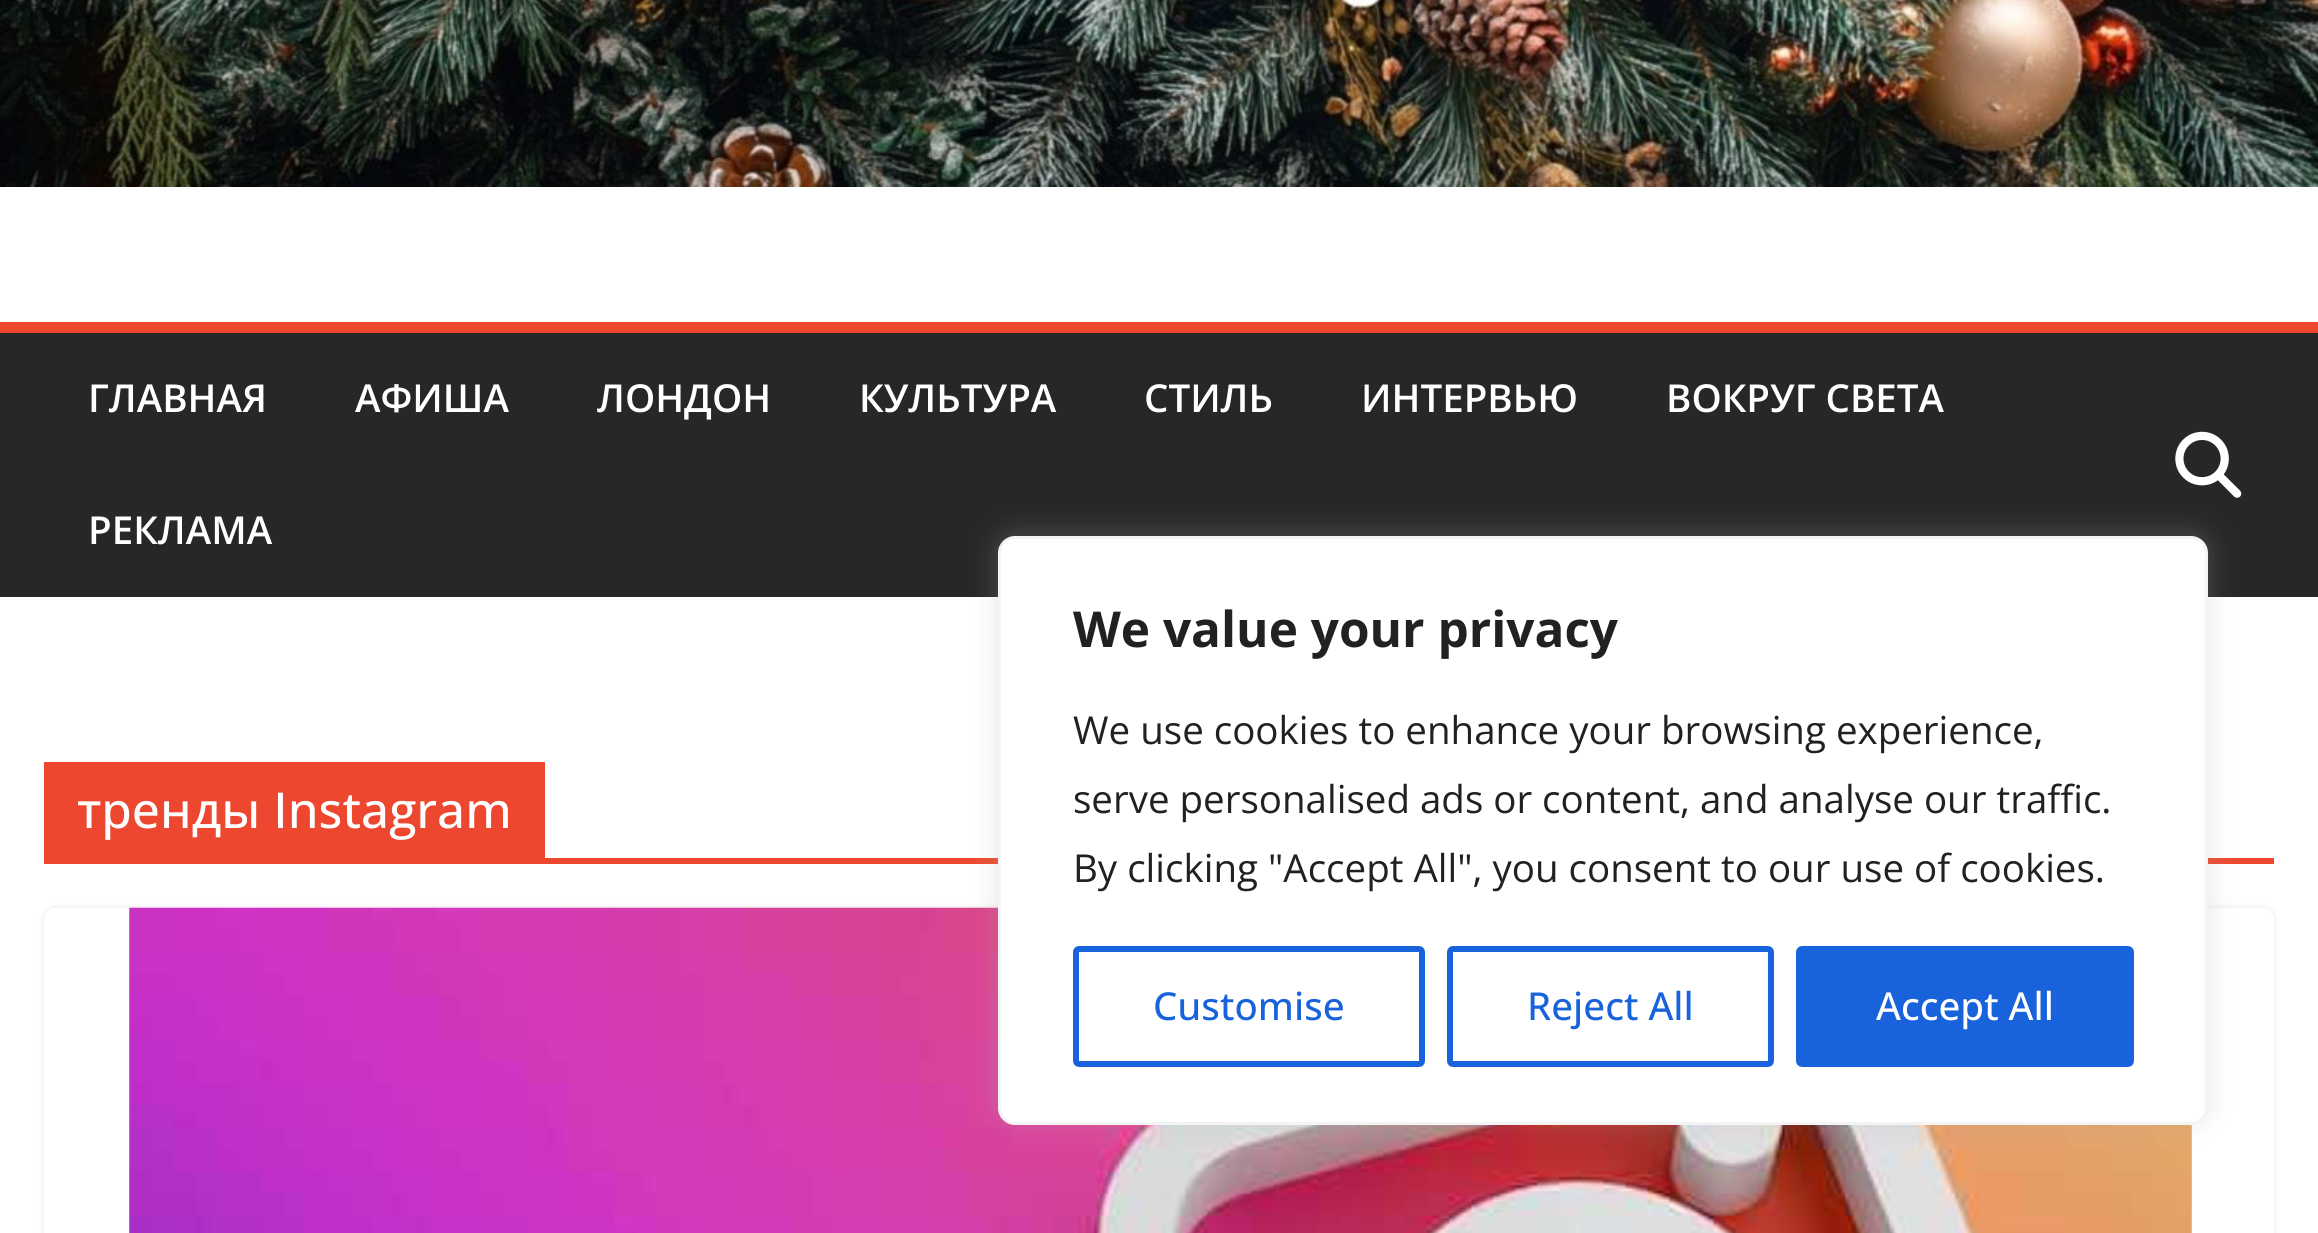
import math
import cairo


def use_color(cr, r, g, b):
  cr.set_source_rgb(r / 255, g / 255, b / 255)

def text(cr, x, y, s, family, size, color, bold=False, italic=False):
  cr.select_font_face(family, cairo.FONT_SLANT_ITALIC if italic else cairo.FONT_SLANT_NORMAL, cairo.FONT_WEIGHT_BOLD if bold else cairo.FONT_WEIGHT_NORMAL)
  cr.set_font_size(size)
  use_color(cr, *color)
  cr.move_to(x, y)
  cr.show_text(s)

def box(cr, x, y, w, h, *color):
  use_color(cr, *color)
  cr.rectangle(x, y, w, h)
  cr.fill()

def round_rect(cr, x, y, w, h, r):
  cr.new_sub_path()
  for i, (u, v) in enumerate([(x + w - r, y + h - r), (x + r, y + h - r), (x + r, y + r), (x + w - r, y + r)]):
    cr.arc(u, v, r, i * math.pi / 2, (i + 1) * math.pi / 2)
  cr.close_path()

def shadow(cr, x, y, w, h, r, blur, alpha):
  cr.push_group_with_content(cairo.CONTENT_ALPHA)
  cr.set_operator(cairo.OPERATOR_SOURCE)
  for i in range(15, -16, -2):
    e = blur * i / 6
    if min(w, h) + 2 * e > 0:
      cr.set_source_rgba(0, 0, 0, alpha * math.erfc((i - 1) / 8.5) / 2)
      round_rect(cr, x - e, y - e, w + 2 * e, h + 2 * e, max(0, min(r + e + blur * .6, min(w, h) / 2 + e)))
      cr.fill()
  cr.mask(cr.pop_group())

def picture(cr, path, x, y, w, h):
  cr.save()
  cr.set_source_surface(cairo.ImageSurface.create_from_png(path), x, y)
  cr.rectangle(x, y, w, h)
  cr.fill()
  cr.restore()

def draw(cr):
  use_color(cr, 255, 255, 255)
  cr.paint()
  picture(cr, "img_01.png", 0, 0, 2318, 187)
  box(cr, 0, 333, 2318, 264, 39, 39, 42)
  box(cr, 0, 322, 2318, 11, 237, 72, 47)
  picture(cr, "img_02.png", 2175, 431, 67, 67)
  box(cr, 44, 858, 2230, 6, 237, 72, 47)
  box(cr, 44, 762, 501, 96, 237, 72, 47)
  cr.save()
  cr.set_fill_rule(cairo.FILL_RULE_EVEN_ODD)
  cr.new_path()
  cr.move_to(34, 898)
  cr.line_to(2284, 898)
  cr.line_to(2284, 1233)
  cr.line_to(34, 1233)
  cr.close_path()
  cr.move_to(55, 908)
  cr.line_to(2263, 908)
  cr.curve_to(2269, 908, 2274, 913, 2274, 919)
  cr.line_to(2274, 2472)
  cr.curve_to(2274, 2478, 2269, 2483, 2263, 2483)
  cr.line_to(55, 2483)
  cr.curve_to(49, 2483, 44, 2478, 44, 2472)
  cr.line_to(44, 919)
  cr.curve_to(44, 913, 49, 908, 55, 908)
  cr.close_path()
  cr.clip()
  use_color(cr, 228, 228, 231)
  shadow(cr, 44, 908, 2230, 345, 11, 3, 1)
  cr.restore()
  picture(cr, "img_03.png", 129, 907, 2063, 326)
  use_color(cr, 172, 171, 171)
  shadow(cr, 998, 534, 1210, 588, 17, 14, 0.3)
  use_color(cr, 255, 255, 255)
  round_rect(cr, 999.5, 537.5, 1207, 586, 15.5)
  cr.fill_preserve()
  use_color(cr, 244, 244, 244)
  cr.set_line_width(3)
  cr.stroke()
  round_rect(cr, 1076, 949, 346, 115, 3)
  use_color(cr, 24, 99, 220)
  cr.set_line_width(6)
  cr.stroke()
  round_rect(cr, 1450, 949, 321, 115, 3)
  cr.stroke()
  round_rect(cr, 1799, 949, 332, 115, 3)
  cr.fill_preserve()
  cr.stroke()
  text(cr, 88, 412, "ГЛАВНАЯ", "Open Sans SemiBold", 38.5, (255, 255, 255))
  text(cr, 355, 412, "АФИША", "Open Sans SemiBold", 38.5, (255, 255, 255))
  text(cr, 597, 412, "ЛОНДОН", "Open Sans SemiBold", 38.5, (255, 255, 255))
  text(cr, 859, 412, "КУЛЬТУРА", "Open Sans SemiBold", 38.5, (255, 255, 255))
  text(cr, 1144, 412, "СТИЛЬ", "Open Sans SemiBold", 38.5, (255, 255, 255))
  text(cr, 1361, 412, "ИНТЕРВЬЮ", "Open Sans SemiBold", 38.5, (255, 255, 255))
  text(cr, 1666, 412, "ВОКРУГ СВЕТА", "Open Sans SemiBold", 38.5, (255, 255, 255))
  text(cr, 88, 544, "РЕКЛАМА", "Open Sans SemiBold", 38.5, (255, 255, 255))
  text(cr, 77, 828, "тренды Instagram", "Open Sans Medium", 49.5, (255, 255, 255))
  text(cr, 1073, 647, "We value your privacy", "Open Sans", 49.5, (33, 33, 33), bold=True)
  text(cr, 1073, 744, "We use cookies to enhance your browsing experience,", "Open Sans", 38.5, (33, 33, 33))
  text(cr, 1073, 813, "serve personalised ads or content, and analyse our traffic.", "Open Sans", 38.5, (33, 33, 33))
  text(cr, 1073, 882, "By clicking \"Accept All\", you consent to our use of cookies.", "Open Sans", 38.5, (33, 33, 33))
  text(cr, 1153, 1020, "Customise", "Open Sans Medium", 38.5, (24, 99, 220))
  text(cr, 1527, 1020, "Reject All", "Open Sans Medium", 38.5, (24, 99, 220))
  text(cr, 1876, 1020, "Accept All", "Open Sans Medium", 38.5, (255, 255, 255))


surface = cairo.ImageSurface(cairo.FORMAT_RGB24, 2318, 1233)
cr = cairo.Context(surface)
options = cairo.FontOptions()
options.set_hint_metrics(cairo.HINT_METRICS_OFF)
options.set_hint_style(cairo.HINT_STYLE_NONE)
cr.set_font_options(options)
cr.set_miter_limit(4)
draw(cr)
surface.write_to_png("out.png")
